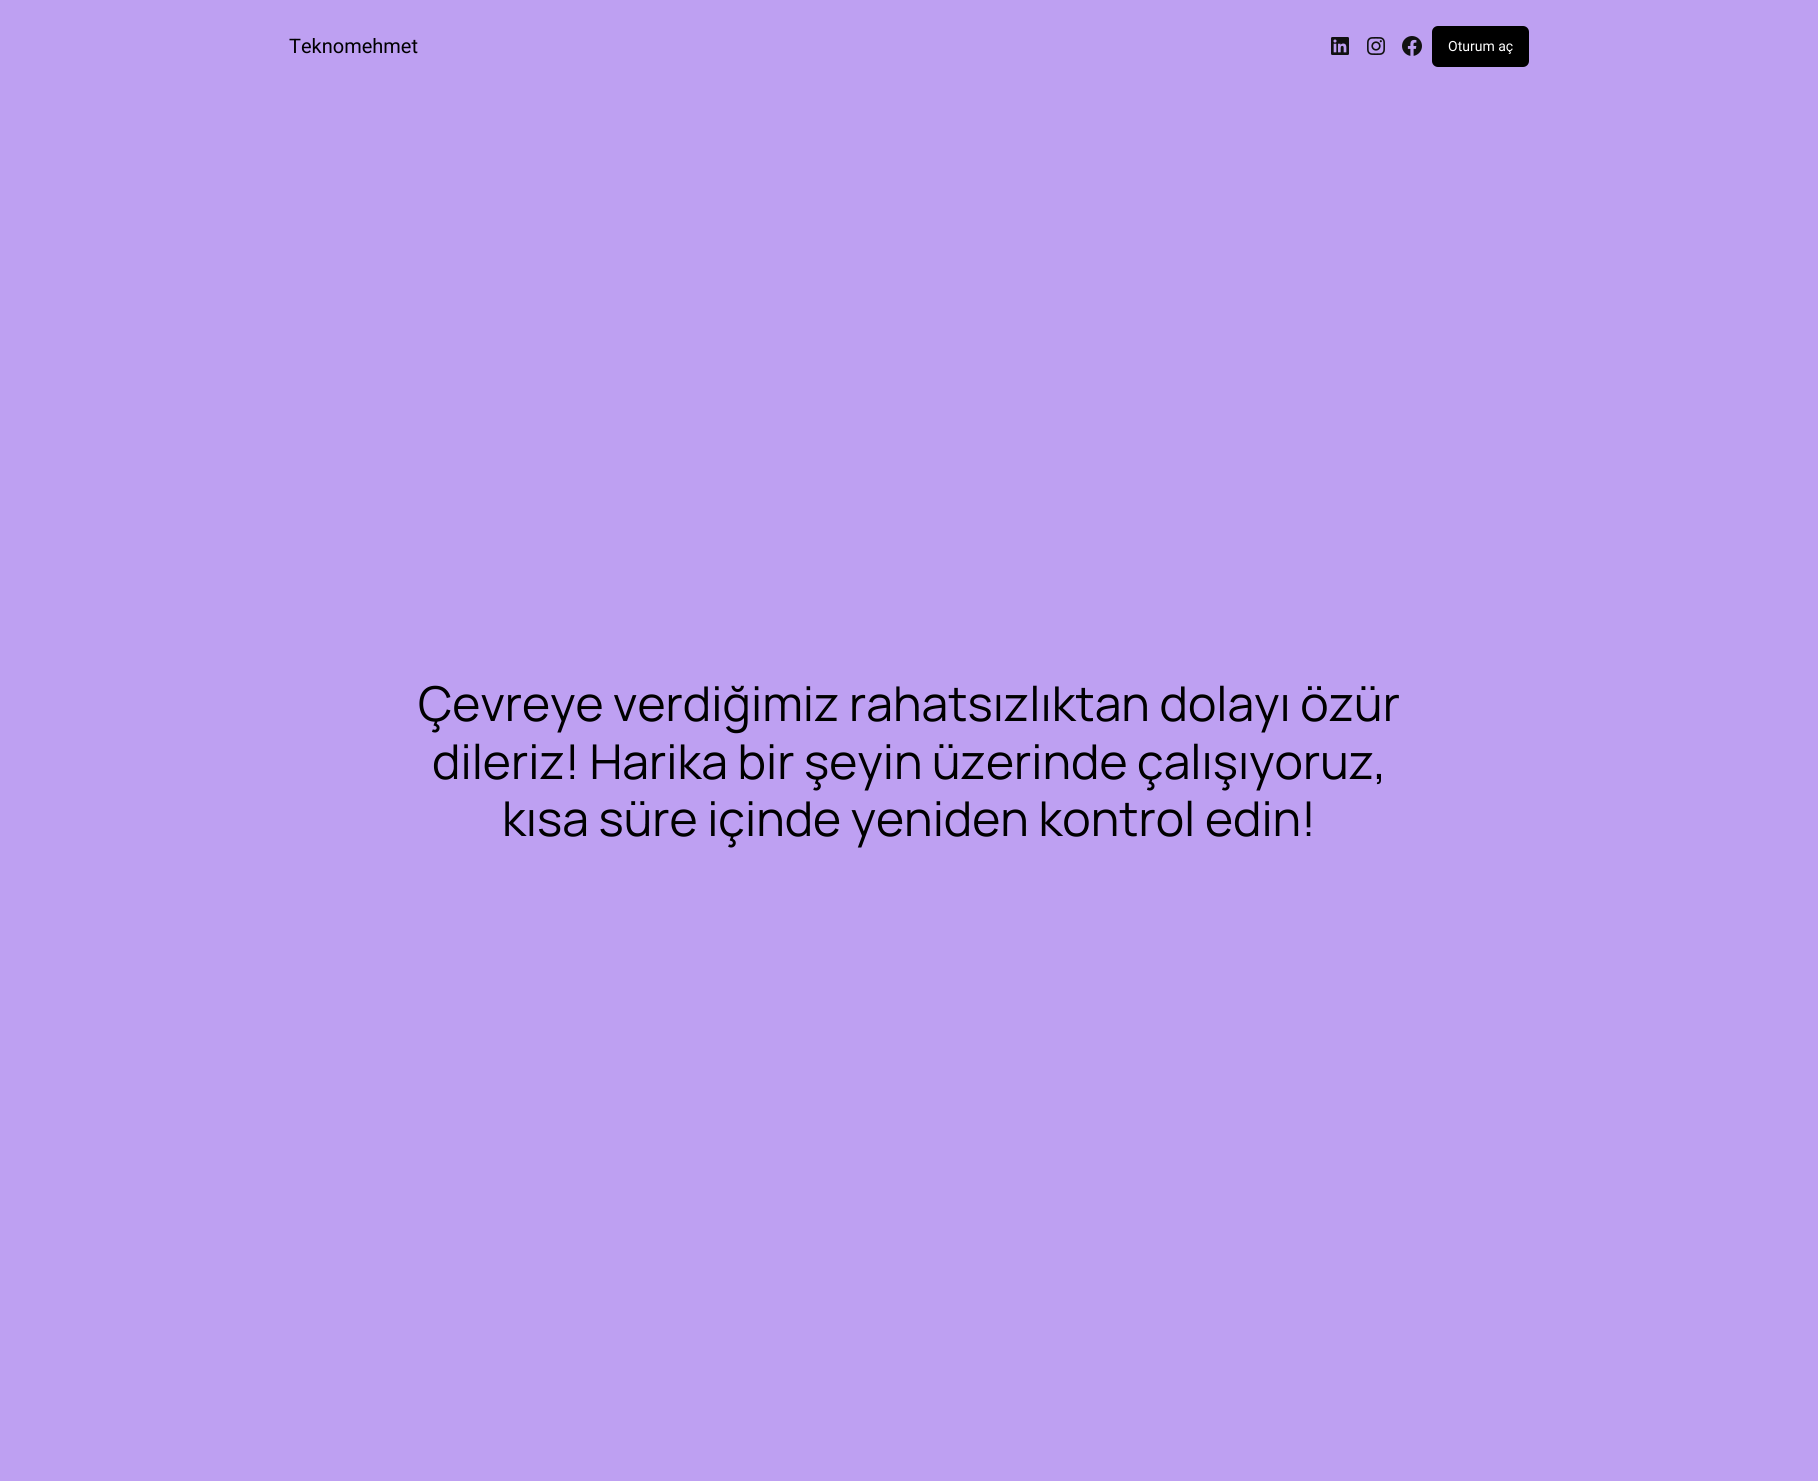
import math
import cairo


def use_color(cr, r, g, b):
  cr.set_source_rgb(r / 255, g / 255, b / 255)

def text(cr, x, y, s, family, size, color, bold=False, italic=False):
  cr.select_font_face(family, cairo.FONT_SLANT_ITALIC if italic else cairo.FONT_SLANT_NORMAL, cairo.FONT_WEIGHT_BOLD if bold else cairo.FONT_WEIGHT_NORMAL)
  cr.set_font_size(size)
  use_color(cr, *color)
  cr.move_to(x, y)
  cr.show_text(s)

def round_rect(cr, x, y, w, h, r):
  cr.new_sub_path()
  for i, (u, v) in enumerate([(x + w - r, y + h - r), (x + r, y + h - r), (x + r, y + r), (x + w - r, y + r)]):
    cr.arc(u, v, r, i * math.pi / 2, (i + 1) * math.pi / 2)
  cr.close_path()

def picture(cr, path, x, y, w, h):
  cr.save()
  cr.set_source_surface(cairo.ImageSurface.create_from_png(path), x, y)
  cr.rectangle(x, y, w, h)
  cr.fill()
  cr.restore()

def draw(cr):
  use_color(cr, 190, 160, 242)
  cr.paint()
  picture(cr, "img_01.png", 1331, 37, 18, 18)
  picture(cr, "img_02.png", 1367, 37, 18, 18)
  picture(cr, "img_03.png", 1402, 36, 20, 20)
  use_color(cr, 0, 0, 0)
  round_rect(cr, 1432, 26, 97, 41, 6)
  cr.fill()
  text(cr, 289, 53, "Teknomehmet", "Roboto", 20, (0, 0, 0))
  text(cr, 1448, 51, "Oturum aç", "Roboto", 14, (255, 255, 255))
  text(cr, 418, 721, "Çevreye verdiğimiz rahatsızlıktan dolayı özür", "Manrope", 48, (0, 0, 0))
  text(cr, 432, 779, "dileriz! Harika bir şeyin üzerinde çalışıyoruz,", "Manrope", 48, (0, 0, 0))
  text(cr, 502, 836, "kısa süre içinde yeniden kontrol edin!", "Manrope", 48, (0, 0, 0))


surface = cairo.ImageSurface(cairo.FORMAT_RGB24, 1818, 1481)
cr = cairo.Context(surface)
options = cairo.FontOptions()
options.set_hint_metrics(cairo.HINT_METRICS_OFF)
options.set_hint_style(cairo.HINT_STYLE_NONE)
cr.set_font_options(options)
cr.set_miter_limit(4)
draw(cr)
surface.write_to_png("out.png")
